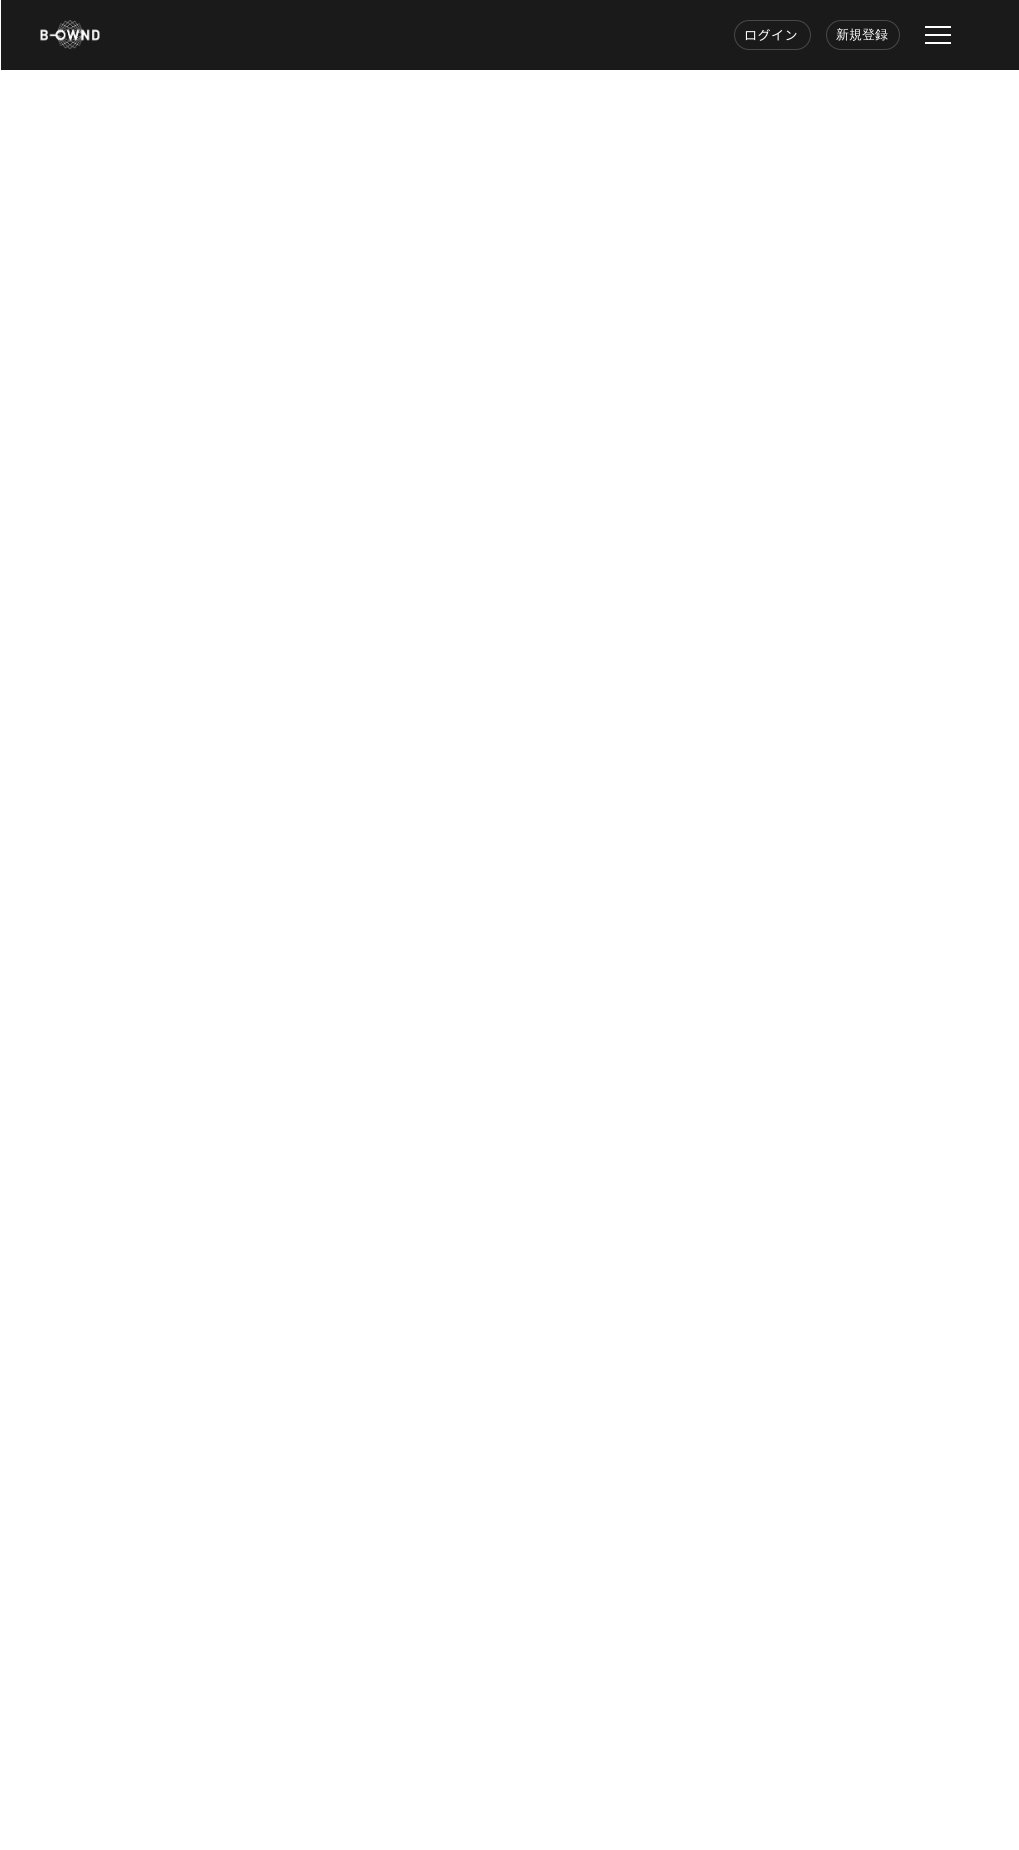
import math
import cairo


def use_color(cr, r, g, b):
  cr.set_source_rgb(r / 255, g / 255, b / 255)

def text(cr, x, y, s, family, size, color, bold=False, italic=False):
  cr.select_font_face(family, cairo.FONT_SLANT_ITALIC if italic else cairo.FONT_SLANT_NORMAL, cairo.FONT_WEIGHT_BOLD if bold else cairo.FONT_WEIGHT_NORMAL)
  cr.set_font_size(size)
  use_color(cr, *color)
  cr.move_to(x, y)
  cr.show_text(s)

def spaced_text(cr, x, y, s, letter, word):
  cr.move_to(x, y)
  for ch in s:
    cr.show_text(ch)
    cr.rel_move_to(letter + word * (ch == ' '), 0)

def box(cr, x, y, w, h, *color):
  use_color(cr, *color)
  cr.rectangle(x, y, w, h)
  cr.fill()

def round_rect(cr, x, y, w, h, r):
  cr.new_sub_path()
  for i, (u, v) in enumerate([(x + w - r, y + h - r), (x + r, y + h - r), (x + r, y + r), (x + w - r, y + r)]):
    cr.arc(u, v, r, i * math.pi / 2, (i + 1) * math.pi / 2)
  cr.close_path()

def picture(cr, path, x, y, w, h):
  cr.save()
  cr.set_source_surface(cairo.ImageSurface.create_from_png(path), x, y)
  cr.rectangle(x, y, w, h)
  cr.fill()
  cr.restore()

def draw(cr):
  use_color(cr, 255, 255, 255)
  cr.paint()
  box(cr, 1, 0, 1018, 70, 26, 26, 26)
  picture(cr, "img_01.png", 40, 20, 60, 29)
  round_rect(cr, 734.5, 20.5, 76, 29, 14.5)
  use_color(cr, 72, 72, 72)
  cr.set_line_width(1)
  cr.stroke()
  round_rect(cr, 826.5, 20.5, 73, 29, 14.5)
  cr.stroke()
  box(cr, 925, 26, 26, 2, 255, 255, 255)
  box(cr, 925, 34, 26, 2, 255, 255, 255)
  box(cr, 925, 42, 26, 2, 255, 255, 255)
  cr.select_font_face("Noto Sans JP")
  cr.set_font_size(13)
  spaced_text(cr, 744, 40, "ログイン", 0.5, 0)
  text(cr, 836, 39, "新規登録", "WenQuanYi Zen Hei Medium", 13, (255, 255, 255))


surface = cairo.ImageSurface(cairo.FORMAT_RGB24, 1019, 1850)
cr = cairo.Context(surface)
options = cairo.FontOptions()
options.set_hint_metrics(cairo.HINT_METRICS_OFF)
options.set_hint_style(cairo.HINT_STYLE_NONE)
cr.set_font_options(options)
cr.set_miter_limit(4)
draw(cr)
surface.write_to_png("out.png")
